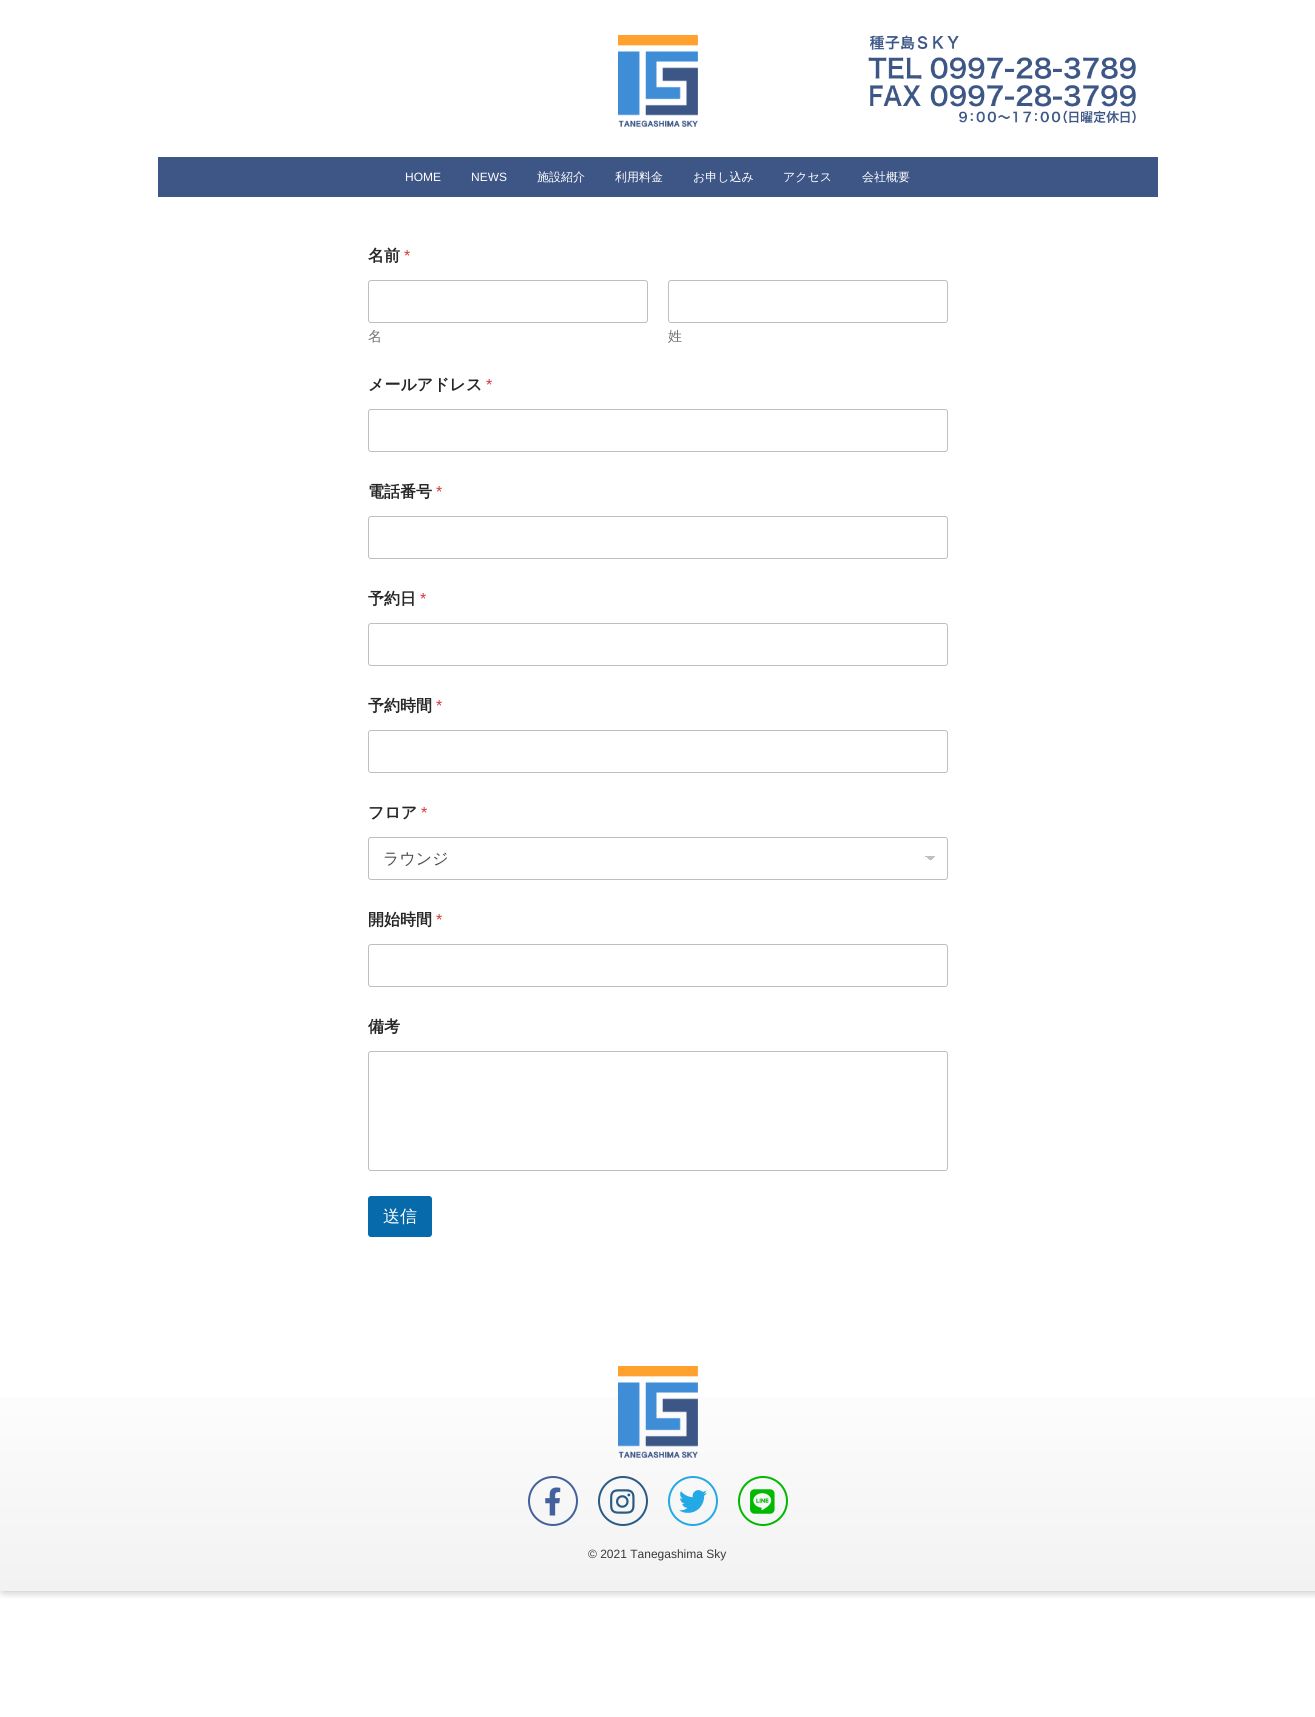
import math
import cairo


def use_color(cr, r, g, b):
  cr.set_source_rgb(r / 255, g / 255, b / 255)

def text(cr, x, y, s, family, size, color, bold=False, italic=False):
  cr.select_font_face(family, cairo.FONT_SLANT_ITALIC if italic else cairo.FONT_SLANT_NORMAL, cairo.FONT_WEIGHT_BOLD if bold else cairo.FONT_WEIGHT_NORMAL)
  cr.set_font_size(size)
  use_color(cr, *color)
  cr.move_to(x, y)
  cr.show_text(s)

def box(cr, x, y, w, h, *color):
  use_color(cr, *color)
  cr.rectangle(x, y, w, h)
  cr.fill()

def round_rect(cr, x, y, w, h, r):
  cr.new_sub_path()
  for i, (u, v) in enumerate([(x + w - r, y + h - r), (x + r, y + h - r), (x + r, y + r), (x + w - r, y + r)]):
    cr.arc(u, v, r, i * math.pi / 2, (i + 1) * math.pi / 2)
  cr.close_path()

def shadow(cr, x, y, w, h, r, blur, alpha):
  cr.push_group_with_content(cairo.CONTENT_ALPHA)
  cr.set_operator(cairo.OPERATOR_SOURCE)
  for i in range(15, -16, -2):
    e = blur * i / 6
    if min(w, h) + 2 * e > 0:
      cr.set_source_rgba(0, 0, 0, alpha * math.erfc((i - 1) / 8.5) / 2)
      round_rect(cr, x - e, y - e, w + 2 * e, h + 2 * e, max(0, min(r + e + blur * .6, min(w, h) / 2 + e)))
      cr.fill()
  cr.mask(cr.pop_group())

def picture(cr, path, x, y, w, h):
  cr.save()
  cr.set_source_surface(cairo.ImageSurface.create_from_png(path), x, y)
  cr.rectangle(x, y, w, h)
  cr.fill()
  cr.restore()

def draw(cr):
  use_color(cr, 255, 255, 255)
  cr.paint()
  cr.save()
  cr.rectangle(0, 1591, 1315, 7)
  cr.clip()
  use_color(cr, 0, 0, 0)
  shadow(cr, 3, 0, 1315, 1591, 0, 5, 0.3)
  cr.restore()
  picture(cr, "img_01.png", 618, 35, 80, 92)
  picture(cr, "img_02.png", 868, 35, 268, 88)
  box(cr, 158, 157, 1000, 40, 62, 86, 134)
  round_rect(cr, 368.5, 280.5, 279, 42, 2.5)
  use_color(cr, 191, 191, 191)
  cr.set_line_width(1)
  cr.stroke()
  round_rect(cr, 668.5, 280.5, 279, 42, 2.5)
  cr.stroke()
  round_rect(cr, 368.5, 409.5, 579, 42, 2.5)
  cr.stroke()
  round_rect(cr, 368.5, 516.5, 579, 42, 2.5)
  cr.stroke()
  round_rect(cr, 368.5, 623.5, 579, 42, 2.5)
  cr.stroke()
  round_rect(cr, 368.5, 730.5, 579, 42, 2.5)
  cr.stroke()
  gradient = cairo.LinearGradient(930, 856, 935, 861)
  gradient.add_color_stop_rgba(0.5, 0.749, 0.749, 0.749, 1)
  gradient.add_color_stop_rgba(0.5, 1, 1, 1, 1)
  cr.set_source(gradient)
  cr.rectangle(930, 856, 5, 4)
  cr.fill()
  gradient = cairo.LinearGradient(925, 861, 930, 856)
  gradient.add_color_stop_rgba(0.5, 1, 1, 1, 1)
  gradient.add_color_stop_rgba(0.5, 0.749, 0.749, 0.749, 1)
  cr.set_source(gradient)
  cr.rectangle(925, 856, 5, 4)
  cr.fill()
  round_rect(cr, 368.5, 837.5, 579, 42, 2.5)
  use_color(cr, 191, 191, 191)
  cr.stroke()
  round_rect(cr, 368.5, 944.5, 579, 42, 2.5)
  cr.stroke()
  round_rect(cr, 368.5, 1051.5, 579, 119, 2.5)
  cr.stroke()
  use_color(cr, 6, 106, 171)
  round_rect(cr, 368, 1196, 64, 41, 3)
  cr.fill()
  gradient = cairo.LinearGradient(658, 1591, 658, 1351)
  gradient.add_color_stop_rgba(0, 0.949, 0.949, 0.949, 1)
  gradient.add_color_stop_rgba(1, 1, 1, 1, 1)
  cr.set_source(gradient)
  cr.rectangle(0, 1397, 1315, 194)
  cr.fill()
  picture(cr, "img_03.png", 618, 1366, 80, 92)
  cr.arc(553, 1501, 24, 0, 2 * math.pi)
  use_color(cr, 67, 97, 156)
  cr.set_line_width(2)
  cr.stroke()
  picture(cr, "img_04.png", 545, 1487, 16, 29)
  cr.arc(623, 1501, 24, 0, 2 * math.pi)
  use_color(cr, 42, 91, 131)
  cr.stroke()
  picture(cr, "img_05.png", 610, 1489, 25, 25)
  cr.arc(693, 1501, 24, 0, 2 * math.pi)
  use_color(cr, 36, 169, 230)
  cr.stroke()
  picture(cr, "img_06.png", 679, 1490, 28, 23)
  cr.arc(763, 1501, 24, 0, 2 * math.pi)
  use_color(cr, 0, 185, 0)
  cr.stroke()
  picture(cr, "img_07.png", 750, 1489, 25, 25)
  text(cr, 405, 181, "HOME", "Liberation Sans", 12, (255, 255, 255))
  text(cr, 471, 181, "NEWS", "Liberation Sans", 12, (255, 255, 255))
  text(cr, 537, 181, "施設紹介", "WenQuanYi Zen Hei Medium", 12, (255, 255, 255))
  text(cr, 615, 181, "利用料金", "WenQuanYi Zen Hei Medium", 12, (255, 255, 255))
  text(cr, 693, 181, "お申し込み", "WenQuanYi Zen Hei Medium", 12, (255, 255, 255))
  text(cr, 783, 181, "アクセス", "WenQuanYi Zen Hei Medium", 12, (255, 255, 255))
  text(cr, 862, 181, "会社概要", "WenQuanYi Zen Hei Medium", 12, (255, 255, 255))
  text(cr, 368, 261, "名前", "WenQuanYi Zen Hei", 16, (38, 38, 38), bold=True)
  text(cr, 404, 261, "*", "Liberation Sans", 16, (214, 54, 55))
  text(cr, 368, 341, "名", "WenQuanYi Zen Hei Medium", 14, (115, 115, 115))
  text(cr, 668, 341, "姓", "WenQuanYi Zen Hei Medium", 14, (115, 115, 115))
  text(cr, 368, 390, "メールアドレス", "WenQuanYi Zen Hei", 16, (38, 38, 38), bold=True)
  text(cr, 486, 390, "*", "Liberation Sans", 16, (214, 54, 55))
  text(cr, 368, 497, "電話番号", "WenQuanYi Zen Hei", 16, (38, 38, 38), bold=True)
  text(cr, 436, 497, "*", "Liberation Sans", 16, (214, 54, 55))
  text(cr, 368, 604, "予約日", "WenQuanYi Zen Hei", 16, (38, 38, 38), bold=True)
  text(cr, 420, 604, "*", "Liberation Sans", 16, (214, 54, 55))
  text(cr, 368, 711, "予約時間", "WenQuanYi Zen Hei", 16, (38, 38, 38), bold=True)
  text(cr, 436, 711, "*", "Liberation Sans", 16, (214, 54, 55))
  text(cr, 368, 818, "フロア", "WenQuanYi Zen Hei", 16, (38, 38, 38), bold=True)
  text(cr, 421, 818, "*", "Liberation Sans", 16, (214, 54, 55))
  text(cr, 383, 864, "ラウンジ", "WenQuanYi Zen Hei Medium", 16, (77, 77, 77))
  text(cr, 368, 925, "開始時間", "WenQuanYi Zen Hei", 16, (38, 38, 38), bold=True)
  text(cr, 436, 925, "*", "Liberation Sans", 16, (214, 54, 55))
  text(cr, 368, 1032, "備考", "WenQuanYi Zen Hei", 16, (38, 38, 38), bold=True)
  text(cr, 383, 1222, "送信", "WenQuanYi Zen Hei Medium", 17, (255, 255, 255))
  text(cr, 588, 1558, "© 2021 Tanegashima Sky", "Liberation Sans", 12, (57, 57, 57))


surface = cairo.ImageSurface(cairo.FORMAT_RGB24, 1315, 1717)
cr = cairo.Context(surface)
options = cairo.FontOptions()
options.set_hint_metrics(cairo.HINT_METRICS_OFF)
options.set_hint_style(cairo.HINT_STYLE_NONE)
cr.set_font_options(options)
cr.set_miter_limit(4)
draw(cr)
surface.write_to_png("out.png")
